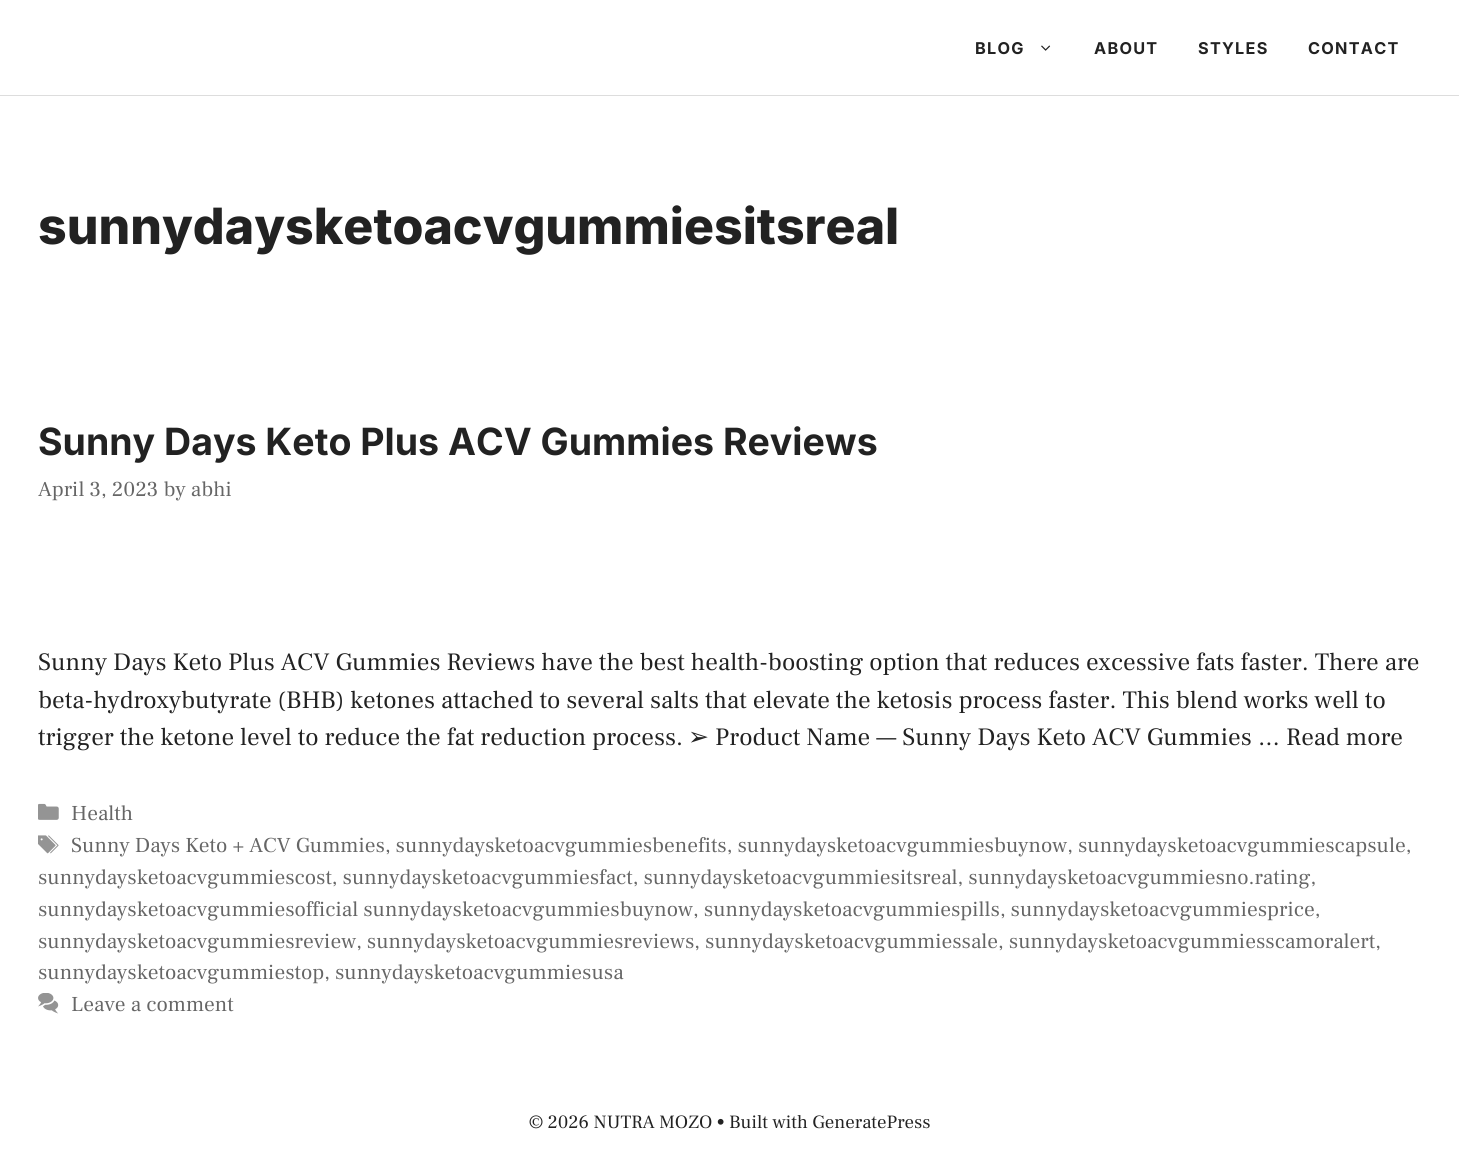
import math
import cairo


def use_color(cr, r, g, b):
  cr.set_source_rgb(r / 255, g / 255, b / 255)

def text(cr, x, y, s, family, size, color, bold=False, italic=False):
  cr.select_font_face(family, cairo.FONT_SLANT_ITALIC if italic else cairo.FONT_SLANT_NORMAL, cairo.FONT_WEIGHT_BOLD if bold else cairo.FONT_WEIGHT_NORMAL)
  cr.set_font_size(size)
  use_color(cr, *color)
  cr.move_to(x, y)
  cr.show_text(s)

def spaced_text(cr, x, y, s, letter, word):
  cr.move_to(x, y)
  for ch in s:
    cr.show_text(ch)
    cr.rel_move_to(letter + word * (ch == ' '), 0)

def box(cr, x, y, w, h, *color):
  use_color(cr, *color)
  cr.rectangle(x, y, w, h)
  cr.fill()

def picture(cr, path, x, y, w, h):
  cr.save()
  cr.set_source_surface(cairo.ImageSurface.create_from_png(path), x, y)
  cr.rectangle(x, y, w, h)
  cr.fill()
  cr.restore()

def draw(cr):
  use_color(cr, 255, 255, 255)
  cr.paint()
  box(cr, 0, 95, 1459, 1, 221, 221, 221)
  picture(cr, "img_01.png", 1041, 45, 10, 6)
  picture(cr, "img_02.png", 38, 803, 21, 17)
  picture(cr, "img_03.png", 38, 835, 21, 19)
  picture(cr, "img_04.png", 38, 993, 21, 21)
  cr.select_font_face("Inter", cairo.FONT_SLANT_NORMAL, cairo.FONT_WEIGHT_BOLD)
  cr.set_font_size(16.25)
  use_color(cr, 34, 34, 34)
  spaced_text(cr, 975, 54, "BLOG", 1.25, 0)
  spaced_text(cr, 1094, 54, "ABOUT", 1.25, 0)
  spaced_text(cr, 1198, 54, "STYLES", 1.25, 0)
  spaced_text(cr, 1308, 54, "CONTACT", 1.25, 0)
  text(cr, 38, 244, "sunnydaysketoacvgummiesitsreal", "Inter ExtraBold", 50, (34, 34, 34))
  text(cr, 38, 455, "Sunny Days Keto Plus ACV Gummies Reviews", "Inter", 37.5, (34, 34, 34), bold=True)
  text(cr, 38, 496, "April 3, 2023 by abhi", "Frank Ruhl Libre", 21.25, (102, 102, 102))
  text(cr, 38, 670, "Sunny Days Keto Plus ACV Gummies Reviews have the best health-boosting option that reduces excessive fats faster. There are", "Frank Ruhl Libre", 25, (34, 34, 34))
  text(cr, 38, 708, "beta-hydroxybutyrate (BHB) ketones attached to several salts that elevate the ketosis process faster. This blend works well to", "Frank Ruhl Libre", 25, (34, 34, 34))
  text(cr, 38, 745, "trigger the ketone level to reduce the fat reduction process.", "Frank Ruhl Libre", 25, (34, 34, 34))
  text(cr, 688, 745, "➢", "DejaVu Sans", 25, (34, 34, 34))
  text(cr, 715, 745, "Product Name — Sunny Days Keto ACV Gummies … Read more", "Frank Ruhl Libre", 25, (34, 34, 34))
  text(cr, 71, 820, "Health", "Frank Ruhl Libre", 21.25, (102, 102, 102))
  text(cr, 71, 852, "Sunny Days Keto + ACV Gummies, sunnydaysketoacvgummiesbenefits, sunnydaysketoacvgummiesbuynow, sunnydaysketoacvgummiescapsule,", "Frank Ruhl Libre", 21.25, (102, 102, 102))
  text(cr, 38, 884, "sunnydaysketoacvgummiescost, sunnydaysketoacvgummiesfact, sunnydaysketoacvgummiesitsreal, sunnydaysketoacvgummiesno.rating,", "Frank Ruhl Libre", 21.25, (102, 102, 102))
  text(cr, 38, 916, "sunnydaysketoacvgummiesofficial sunnydaysketoacvgummiesbuynow, sunnydaysketoacvgummiespills, sunnydaysketoacvgummiesprice,", "Frank Ruhl Libre", 21.25, (102, 102, 102))
  text(cr, 38, 948, "sunnydaysketoacvgummiesreview, sunnydaysketoacvgummiesreviews, sunnydaysketoacvgummiessale, sunnydaysketoacvgummiesscamoralert,", "Frank Ruhl Libre", 21.25, (102, 102, 102))
  text(cr, 38, 979, "sunnydaysketoacvgummiestop, sunnydaysketoacvgummiesusa", "Frank Ruhl Libre", 21.25, (102, 102, 102))
  text(cr, 71, 1011, "Leave a comment", "Frank Ruhl Libre", 21.25, (102, 102, 102))
  text(cr, 529, 1128, "© 2026 NUTRA MOZO • Built with GeneratePress", "Frank Ruhl Libre", 18.75, (34, 34, 34))


surface = cairo.ImageSurface(cairo.FORMAT_RGB24, 1459, 1171)
cr = cairo.Context(surface)
options = cairo.FontOptions()
options.set_hint_metrics(cairo.HINT_METRICS_OFF)
options.set_hint_style(cairo.HINT_STYLE_NONE)
cr.set_font_options(options)
cr.set_miter_limit(4)
draw(cr)
surface.write_to_png("out.png")
